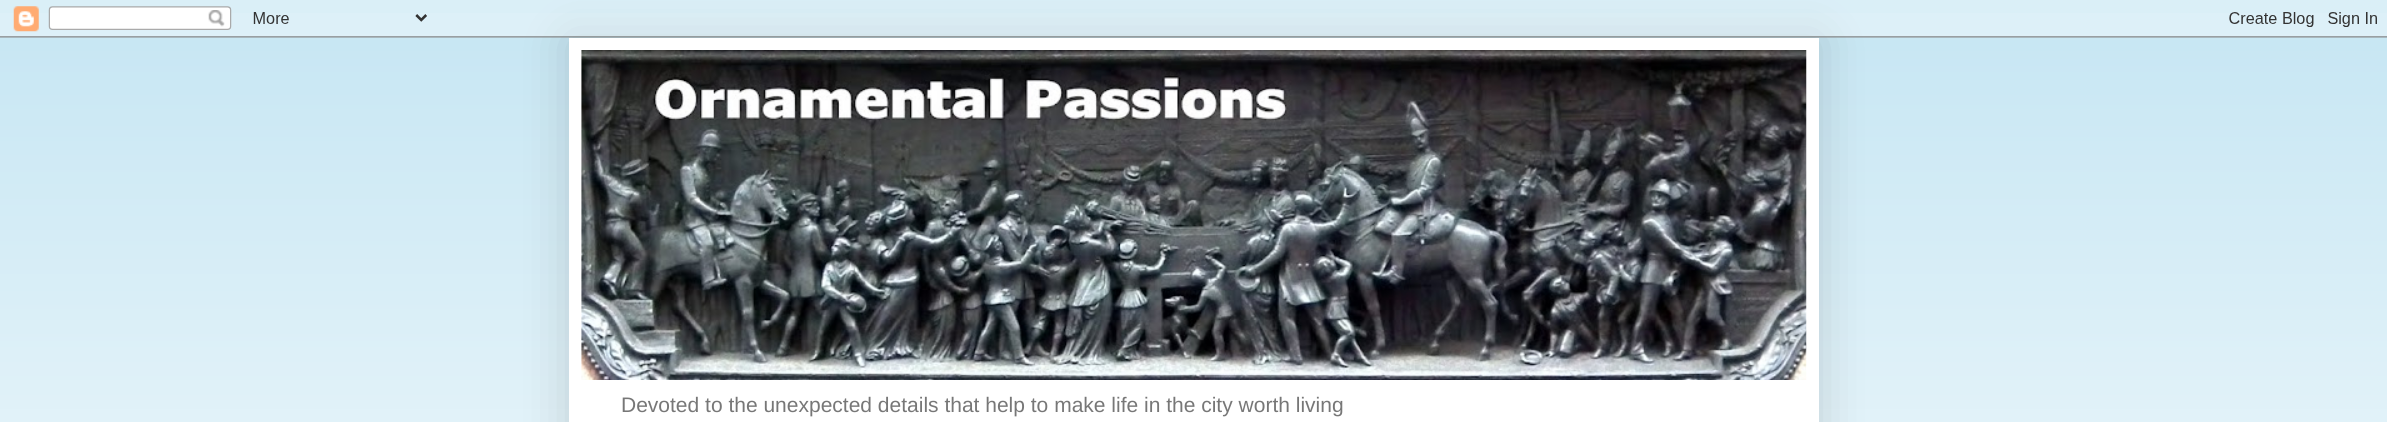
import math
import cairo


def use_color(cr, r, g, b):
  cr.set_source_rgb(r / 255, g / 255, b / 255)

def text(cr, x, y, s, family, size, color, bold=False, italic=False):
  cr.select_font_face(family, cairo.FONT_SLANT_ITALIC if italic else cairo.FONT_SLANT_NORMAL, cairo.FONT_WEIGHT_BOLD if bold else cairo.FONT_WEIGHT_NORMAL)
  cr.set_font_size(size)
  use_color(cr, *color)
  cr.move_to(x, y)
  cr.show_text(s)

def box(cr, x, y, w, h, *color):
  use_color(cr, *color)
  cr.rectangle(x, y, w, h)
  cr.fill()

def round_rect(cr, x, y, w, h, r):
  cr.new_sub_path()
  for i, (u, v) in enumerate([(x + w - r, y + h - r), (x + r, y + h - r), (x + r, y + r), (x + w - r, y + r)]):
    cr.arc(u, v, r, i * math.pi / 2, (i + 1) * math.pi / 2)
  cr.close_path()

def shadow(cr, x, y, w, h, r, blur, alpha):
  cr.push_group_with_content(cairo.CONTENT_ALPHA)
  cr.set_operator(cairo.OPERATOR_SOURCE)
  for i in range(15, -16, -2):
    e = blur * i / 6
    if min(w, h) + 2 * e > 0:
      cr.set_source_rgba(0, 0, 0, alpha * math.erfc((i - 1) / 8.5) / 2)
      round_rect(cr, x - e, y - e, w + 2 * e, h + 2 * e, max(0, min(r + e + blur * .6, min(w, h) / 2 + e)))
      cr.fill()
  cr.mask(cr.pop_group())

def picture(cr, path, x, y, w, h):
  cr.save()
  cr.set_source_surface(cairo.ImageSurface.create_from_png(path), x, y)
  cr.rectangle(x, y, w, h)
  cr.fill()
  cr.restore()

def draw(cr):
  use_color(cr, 194, 228, 242)
  cr.paint()
  picture(cr, "img_02.png", 0, 13, 2387, 409)
  use_color(cr, 0, 0, 0)
  shadow(cr, 569, 38, 1250, 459, 0, 25, 0.15)
  picture(cr, "img_01.png", 0, 0, 2387, 38)
  box(cr, 569, 38, 1250, 384, 255, 255, 255)
  picture(cr, "img_03.png", 581, 50, 1226, 330)
  text(cr, 621, 412, "Devoted to the unexpected details that help to make life in the city worth living", "Liberation Sans", 21, (119, 119, 119))


surface = cairo.ImageSurface(cairo.FORMAT_RGB24, 2387, 422)
cr = cairo.Context(surface)
options = cairo.FontOptions()
options.set_hint_metrics(cairo.HINT_METRICS_OFF)
options.set_hint_style(cairo.HINT_STYLE_NONE)
cr.set_font_options(options)
cr.set_miter_limit(4)
draw(cr)
surface.write_to_png("out.png")
